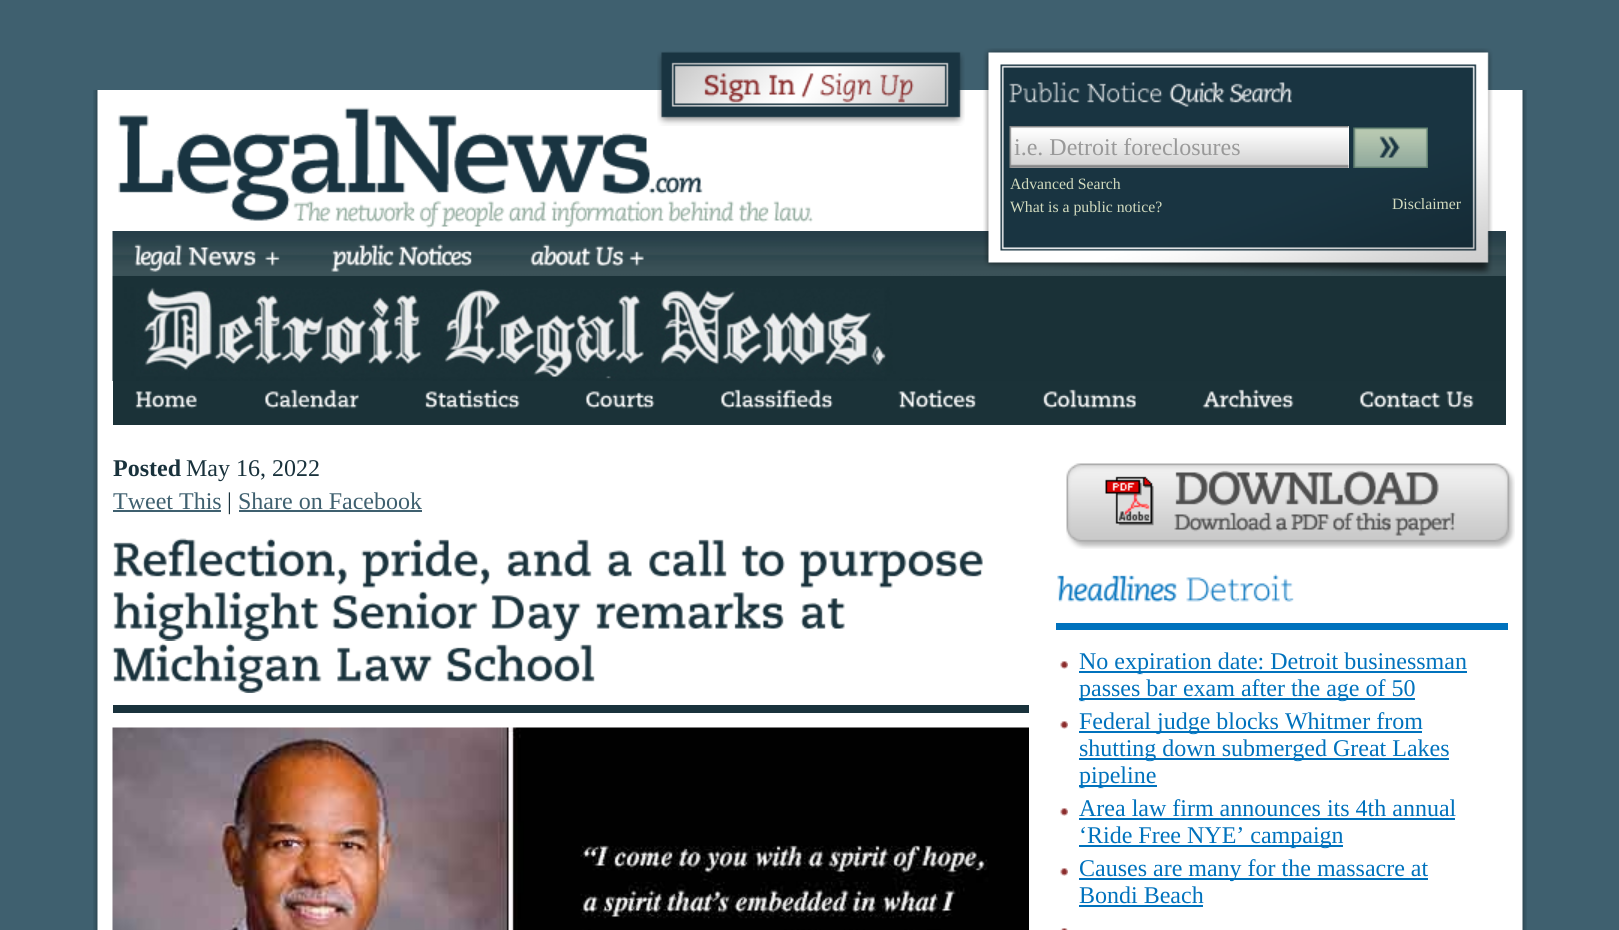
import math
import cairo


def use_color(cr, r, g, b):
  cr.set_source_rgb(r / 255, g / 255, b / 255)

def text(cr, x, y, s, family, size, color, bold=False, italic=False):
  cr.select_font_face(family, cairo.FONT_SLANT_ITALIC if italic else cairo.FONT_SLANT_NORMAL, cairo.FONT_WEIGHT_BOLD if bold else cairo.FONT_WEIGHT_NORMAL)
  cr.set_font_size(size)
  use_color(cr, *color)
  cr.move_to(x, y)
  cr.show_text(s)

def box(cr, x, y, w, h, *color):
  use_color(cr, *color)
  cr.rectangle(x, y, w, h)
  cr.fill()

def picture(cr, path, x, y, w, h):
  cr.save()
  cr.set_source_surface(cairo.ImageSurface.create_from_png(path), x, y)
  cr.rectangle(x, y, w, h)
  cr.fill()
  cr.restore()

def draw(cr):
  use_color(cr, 63, 96, 111)
  cr.paint()
  picture(cr, "img_01.png", 93, 90, 1434, 840)
  picture(cr, "img_03.png", 118, 107, 695, 122)
  picture(cr, "img_02.png", 657, 51, 308, 75)
  picture(cr, "img_11.png", 112, 231, 1394, 45)
  picture(cr, "img_04.png", 983, 48, 510, 227)
  picture(cr, "img_05.png", 1009, 82, 71, 21)
  picture(cr, "img_06.png", 1087, 82, 76, 21)
  picture(cr, "img_07.png", 1169, 82, 56, 25)
  picture(cr, "img_08.png", 1229, 82, 63, 21)
  box(cr, 1348, 126, 1, 42, 255, 255, 255)
  picture(cr, "img_09.png", 1009, 126, 340, 42)
  picture(cr, "img_10.png", 1353, 127, 75, 41)
  picture(cr, "img_12.png", 134, 244, 48, 28)
  picture(cr, "img_13.png", 188, 247, 68, 19)
  picture(cr, "img_14.png", 265, 251, 15, 15)
  picture(cr, "img_15.png", 331, 244, 63, 28)
  picture(cr, "img_16.png", 398, 244, 74, 22)
  picture(cr, "img_17.png", 530, 244, 62, 22)
  picture(cr, "img_18.png", 595, 245, 30, 21)
  picture(cr, "img_19.png", 629, 251, 15, 15)
  picture(cr, "img_20.png", 112, 276, 1394, 105)
  box(cr, 113, 381, 1393, 44, 27, 50, 56)
  picture(cr, "img_21.png", 135, 391, 62, 18)
  picture(cr, "img_22.png", 264, 389, 95, 20)
  picture(cr, "img_23.png", 425, 389, 95, 20)
  picture(cr, "img_24.png", 585, 391, 70, 18)
  picture(cr, "img_25.png", 720, 389, 113, 20)
  picture(cr, "img_26.png", 898, 389, 78, 20)
  picture(cr, "img_27.png", 1042, 389, 95, 20)
  picture(cr, "img_28.png", 1202, 389, 92, 20)
  picture(cr, "img_29.png", 1359, 391, 82, 18)
  picture(cr, "img_30.png", 1446, 391, 28, 18)
  box(cr, 113, 510, 108, 2, 63, 96, 111)
  box(cr, 239, 510, 183, 2, 63, 96, 111)
  box(cr, 113, 705, 916, 8, 25, 50, 60)
  picture(cr, "img_31.png", 113, 538, 234, 48)
  picture(cr, "img_32.png", 361, 538, 129, 50)
  picture(cr, "img_33.png", 506, 539, 86, 38)
  picture(cr, "img_34.png", 607, 550, 25, 27)
  picture(cr, "img_35.png", 649, 539, 78, 38)
  picture(cr, "img_36.png", 741, 545, 44, 32)
  picture(cr, "img_37.png", 799, 550, 184, 38)
  picture(cr, "img_38.png", 113, 591, 206, 50)
  picture(cr, "img_39.png", 332, 591, 146, 38)
  picture(cr, "img_40.png", 491, 595, 90, 46)
  picture(cr, "img_41.png", 595, 592, 189, 37)
  picture(cr, "img_42.png", 800, 598, 45, 31)
  picture(cr, "img_43.png", 112, 643, 210, 50)
  picture(cr, "img_44.png", 337, 647, 96, 35)
  picture(cr, "img_45.png", 446, 644, 149, 38)
  picture(cr, "img_46.png", 112, 727, 917, 203)
  picture(cr, "img_47.png", 1066, 463, 449, 86)
  box(cr, 1056, 623, 452, 7, 0, 114, 189)
  picture(cr, "img_48.png", 1057, 575, 120, 27)
  picture(cr, "img_49.png", 1186, 574, 108, 28)
  picture(cr, "img_50.png", 1060, 661, 8, 8)
  box(cr, 1079, 671, 388, 2, 0, 114, 189)
  box(cr, 1079, 698, 336, 2, 0, 114, 189)
  picture(cr, "img_50.png", 1060, 721, 8, 8)
  box(cr, 1079, 731, 343, 2, 0, 114, 189)
  box(cr, 1079, 758, 370, 2, 0, 114, 189)
  box(cr, 1079, 785, 78, 2, 0, 114, 189)
  picture(cr, "img_50.png", 1060, 808, 8, 8)
  box(cr, 1079, 818, 376, 2, 0, 114, 189)
  box(cr, 1079, 845, 264, 2, 0, 114, 189)
  picture(cr, "img_50.png", 1060, 868, 8, 8)
  box(cr, 1079, 878, 349, 2, 0, 114, 189)
  box(cr, 1079, 905, 124, 2, 0, 114, 189)
  picture(cr, "img_51.png", 1060, 928, 8, 2)
  text(cr, 1014, 155, "i.e. Detroit foreclosures", "Liberation Serif", 24, (153, 153, 153))
  text(cr, 1010, 189, "Advanced Search", "Liberation Serif", 15.75, (210, 219, 190))
  text(cr, 1010, 212, "What is a public notice?", "Liberation Serif", 15.75, (210, 219, 190))
  text(cr, 1392, 209, "Disclaimer", "Liberation Serif", 15.75, (210, 219, 190))
  text(cr, 113, 476, "Posted", "Liberation Serif", 24, (25, 50, 60), bold=True)
  text(cr, 186, 476, "May 16, 2022", "Liberation Serif", 24, (25, 50, 60))
  text(cr, 113, 509, "Tweet This", "Liberation Serif", 24, (63, 96, 111))
  text(cr, 227, 509, "|", "Liberation Serif", 24, (25, 50, 60))
  text(cr, 238, 509, "Share on Facebook", "Liberation Serif", 24, (63, 96, 111))
  text(cr, 1079, 669, "No expiration date: Detroit businessman", "Liberation Serif", 24, (0, 114, 189))
  text(cr, 1079, 696, "passes bar exam after the age of 50", "Liberation Serif", 24, (0, 114, 189))
  text(cr, 1079, 729, "Federal judge blocks Whitmer from", "Liberation Serif", 24, (0, 114, 189))
  text(cr, 1079, 756, "shutting down submerged Great Lakes", "Liberation Serif", 24, (0, 114, 189))
  text(cr, 1079, 783, "pipeline", "Liberation Serif", 24, (0, 114, 189))
  text(cr, 1079, 816, "Area law firm announces its 4th annual", "Liberation Serif", 24, (0, 114, 189))
  text(cr, 1079, 843, "‘Ride Free NYE’ campaign", "Liberation Serif", 24, (0, 114, 189))
  text(cr, 1079, 876, "Causes are many for the massacre at", "Liberation Serif", 24, (0, 114, 189))
  text(cr, 1079, 903, "Bondi Beach", "Liberation Serif", 24, (0, 114, 189))


surface = cairo.ImageSurface(cairo.FORMAT_RGB24, 1619, 930)
cr = cairo.Context(surface)
options = cairo.FontOptions()
options.set_hint_metrics(cairo.HINT_METRICS_OFF)
options.set_hint_style(cairo.HINT_STYLE_NONE)
cr.set_font_options(options)
cr.set_miter_limit(4)
draw(cr)
surface.write_to_png("out.png")
